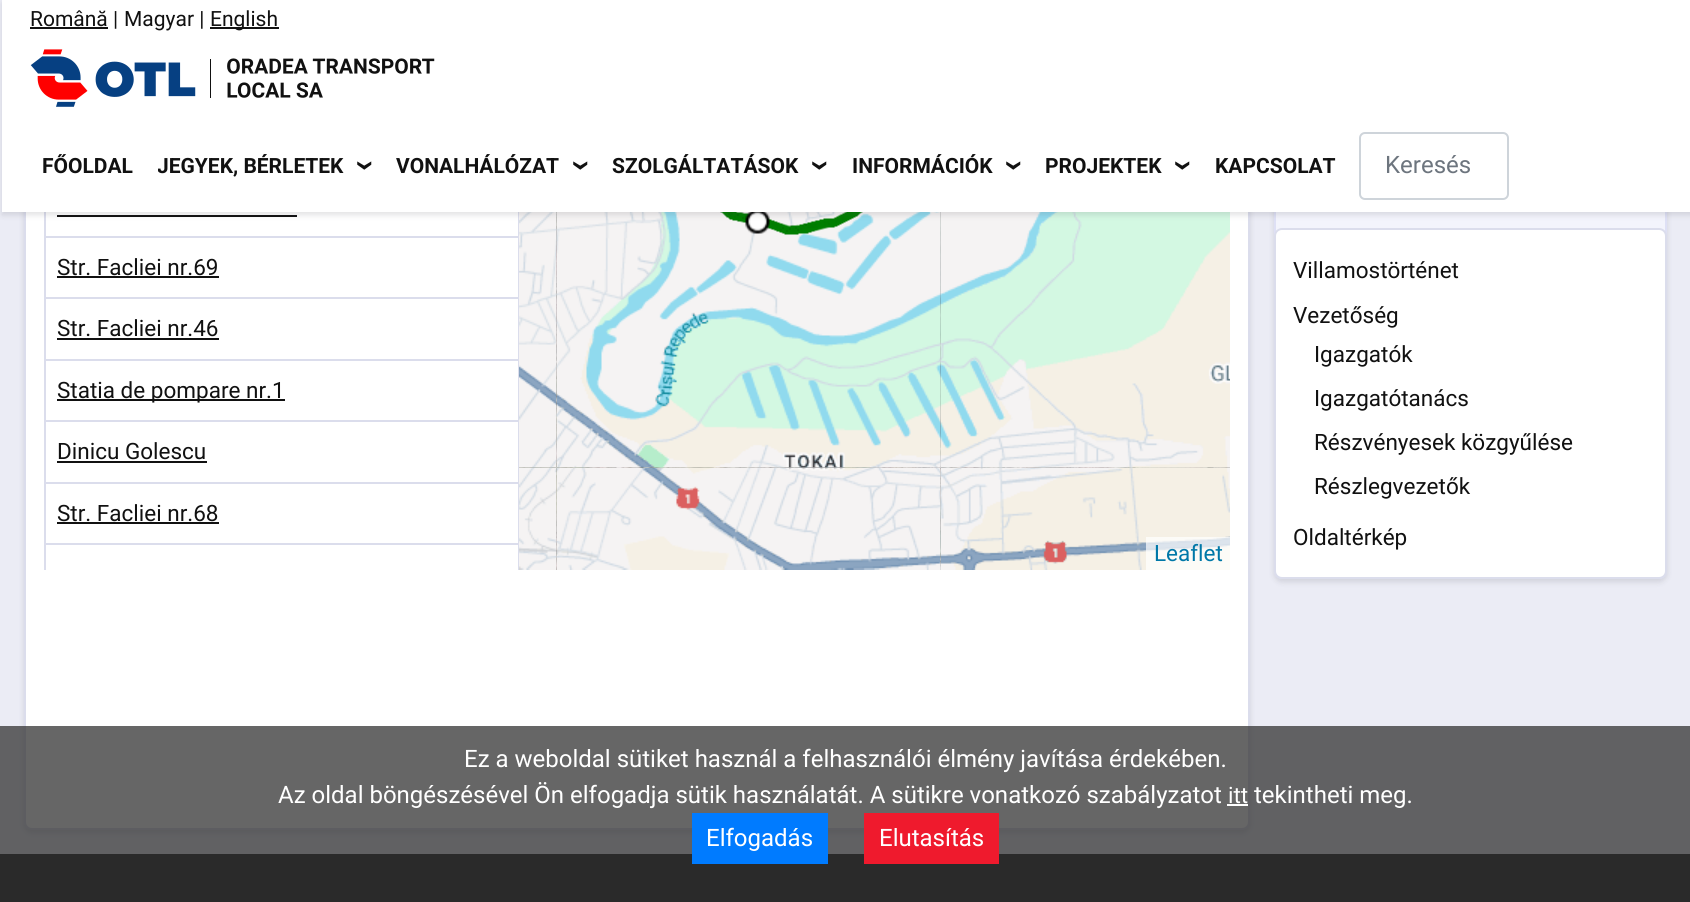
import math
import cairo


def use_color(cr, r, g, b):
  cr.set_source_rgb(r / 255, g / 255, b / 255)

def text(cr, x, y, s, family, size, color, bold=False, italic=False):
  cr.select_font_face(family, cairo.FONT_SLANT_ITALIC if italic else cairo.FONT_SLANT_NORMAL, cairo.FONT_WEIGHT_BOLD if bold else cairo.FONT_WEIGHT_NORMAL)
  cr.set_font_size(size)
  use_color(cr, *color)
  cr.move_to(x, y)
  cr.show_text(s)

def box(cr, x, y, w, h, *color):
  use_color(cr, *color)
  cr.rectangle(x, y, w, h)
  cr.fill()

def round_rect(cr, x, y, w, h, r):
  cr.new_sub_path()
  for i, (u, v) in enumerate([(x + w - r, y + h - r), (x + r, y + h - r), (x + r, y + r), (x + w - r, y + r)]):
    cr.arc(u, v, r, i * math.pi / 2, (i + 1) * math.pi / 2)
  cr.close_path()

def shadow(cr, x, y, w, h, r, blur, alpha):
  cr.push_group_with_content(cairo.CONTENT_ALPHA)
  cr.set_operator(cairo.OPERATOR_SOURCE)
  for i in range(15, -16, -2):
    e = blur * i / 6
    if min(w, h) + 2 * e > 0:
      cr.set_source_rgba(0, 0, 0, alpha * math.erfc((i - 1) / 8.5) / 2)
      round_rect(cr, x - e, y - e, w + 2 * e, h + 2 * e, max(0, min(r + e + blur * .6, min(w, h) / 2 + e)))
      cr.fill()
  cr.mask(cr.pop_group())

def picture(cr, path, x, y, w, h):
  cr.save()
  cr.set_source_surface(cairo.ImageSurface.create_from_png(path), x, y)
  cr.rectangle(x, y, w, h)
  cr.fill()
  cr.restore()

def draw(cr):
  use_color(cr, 235, 236, 245)
  cr.paint()
  use_color(cr, 57, 56, 68)
  shadow(cr, 24, -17, 1226, 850, 8, 3, 0.15)
  use_color(cr, 255, 255, 255)
  round_rect(cr, 25, -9, 1224, 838, 7)
  cr.fill_preserve()
  use_color(cr, 219, 221, 236)
  cr.stroke()
  box(cr, 518, 212, 1, 24, 219, 221, 236)
  box(cr, 44, 212, 2, 24, 219, 221, 236)
  box(cr, 57, 215, 240, 2, 17, 17, 17)
  box(cr, 519, 212, 711, 358, 221, 221, 221)
  picture(cr, "img_03.png", 556, 212, 385, 256)
  picture(cr, "img_04.png", 940, 212, 290, 256)
  picture(cr, "img_02.png", 519, 467, 37, 1)
  picture(cr, "img_07.png", 519, 212, 37, 256)
  picture(cr, "img_08.png", 556, 212, 385, 256)
  picture(cr, "img_09.png", 940, 212, 290, 256)
  picture(cr, "img_13.png", 720, 212, 143, 23)
  picture(cr, "img_14.png", 745, 212, 25, 22)
  use_color(cr, 57, 56, 68)
  shadow(cr, 1274, 170, 393, 412, 8, 3, 0.15)
  use_color(cr, 243, 244, 252)
  round_rect(cr, 1275, 168, 391, 410, 7)
  cr.fill_preserve()
  use_color(cr, 222, 224, 245)
  cr.stroke()
  use_color(cr, 57, 56, 68)
  shadow(cr, 2, 3, 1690, 212, 0, 3, 0.15)
  box(cr, 2, 0, 1688, 212, 255, 255, 255)
  box(cr, 30, 27, 78, 2, 17, 17, 17)
  box(cr, 210, 27, 69, 2, 17, 17, 17)
  picture(cr, "img_01.png", 30, 49, 405, 58)
  round_rect(cr, 1360, 133, 148, 66, 5)
  use_color(cr, 206, 212, 218)
  cr.stroke()
  box(cr, 44, 236, 475, 2, 219, 221, 236)
  box(cr, 518, 236, 1, 61, 219, 221, 236)
  box(cr, 44, 236, 2, 61, 219, 221, 236)
  box(cr, 57, 276, 162, 2, 17, 17, 17)
  box(cr, 44, 297, 475, 2, 219, 221, 236)
  box(cr, 518, 297, 1, 62, 219, 221, 236)
  box(cr, 44, 297, 2, 62, 219, 221, 236)
  box(cr, 57, 338, 162, 2, 17, 17, 17)
  box(cr, 44, 359, 475, 2, 219, 221, 236)
  box(cr, 518, 359, 1, 61, 219, 221, 236)
  box(cr, 44, 359, 2, 61, 219, 221, 236)
  box(cr, 57, 399, 228, 2, 17, 17, 17)
  box(cr, 44, 420, 475, 2, 219, 221, 236)
  box(cr, 518, 420, 1, 62, 219, 221, 236)
  box(cr, 44, 420, 2, 62, 219, 221, 236)
  box(cr, 57, 461, 150, 2, 17, 17, 17)
  box(cr, 44, 482, 475, 2, 219, 221, 236)
  box(cr, 518, 482, 1, 61, 219, 221, 236)
  box(cr, 44, 482, 2, 61, 219, 221, 236)
  box(cr, 57, 522, 162, 2, 17, 17, 17)
  box(cr, 44, 543, 475, 2, 219, 221, 236)
  box(cr, 518, 543, 1, 27, 219, 221, 236)
  box(cr, 44, 543, 2, 27, 219, 221, 236)
  picture(cr, "img_05.png", 556, 468, 1, 102)
  picture(cr, "img_06.png", 940, 468, 1, 102)
  picture(cr, "img_10.png", 519, 468, 37, 102)
  picture(cr, "img_11.png", 556, 468, 384, 102)
  picture(cr, "img_12.png", 940, 468, 290, 102)
  cr.set_source_rgba(1, 1, 1, 0.7)
  cr.rectangle(1146, 537, 84, 33)
  cr.fill()
  use_color(cr, 255, 255, 255)
  round_rect(cr, 1275, 229, 391, 349, 7)
  cr.fill_preserve()
  use_color(cr, 219, 221, 236)
  cr.stroke()
  box(cr, 0, 854, 1690, 48, 17, 17, 17)
  cr.set_source_rgba(0.2, 0.2, 0.2, 0.75)
  cr.rectangle(0, 726, 1690, 176)
  cr.fill()
  box(cr, 1227, 804, 21, 2, 255, 255, 255)
  box(cr, 692, 813, 136, 51, 0, 123, 255)
  box(cr, 864, 813, 135, 51, 239, 26, 45)
  text(cr, 30, 26, "Română |", "Roboto", 21, (17, 17, 17))
  text(cr, 124, 26, "Magyar |", "Roboto", 21, (17, 17, 17))
  text(cr, 210, 26, "English", "Roboto", 21, (17, 17, 17))
  text(cr, 42, 173, "FŐOLDAL", "Roboto", 21, (17, 17, 17), bold=True)
  cr.save()
  cr.rectangle(158, 150, 214, 32)
  cr.clip()
  text(cr, 157, 173, "JEGYEK, BÉRLETEK", "Roboto", 21, (17, 17, 17), bold=True)
  cr.restore()
  cr.save()
  cr.translate(355, 160)
  cr.rotate(90 * math.pi / 180)
  text(cr, 0, 0, "›", "Roboto", 36, (17, 17, 17), bold=True)
  cr.restore()
  text(cr, 396, 173, "VONALHÁLÓZAT", "Roboto", 21, (17, 17, 17), bold=True)
  cr.save()
  cr.translate(571, 160)
  cr.rotate(90 * math.pi / 180)
  text(cr, 0, 0, "›", "Roboto", 36, (17, 17, 17), bold=True)
  cr.restore()
  text(cr, 612, 173, "SZOLGÁLTATÁSOK", "Roboto", 21, (17, 17, 17), bold=True)
  cr.save()
  cr.translate(810, 160)
  cr.rotate(90 * math.pi / 180)
  text(cr, 0, 0, "›", "Roboto", 36, (17, 17, 17), bold=True)
  cr.restore()
  text(cr, 852, 173, "INFORMÁCIÓK", "Roboto", 21, (17, 17, 17), bold=True)
  cr.save()
  cr.translate(1004, 160)
  cr.rotate(90 * math.pi / 180)
  text(cr, 0, 0, "›", "Roboto", 36, (17, 17, 17), bold=True)
  cr.restore()
  text(cr, 1045, 173, "PROJEKTEK", "Roboto", 21, (17, 17, 17), bold=True)
  cr.save()
  cr.translate(1173, 160)
  cr.rotate(90 * math.pi / 180)
  text(cr, 0, 0, "›", "Roboto", 36, (17, 17, 17), bold=True)
  cr.restore()
  text(cr, 1215, 173, "KAPCSOLAT", "Roboto", 21, (17, 17, 17), bold=True)
  text(cr, 1385, 173, "Keresés", "Roboto", 24, (109, 117, 126))
  text(cr, 57, 275, "Str. Facliei nr.69", "Roboto", 22.5, (17, 17, 17))
  text(cr, 57, 336, "Str. Facliei nr.46", "Roboto", 22.5, (17, 17, 17))
  text(cr, 57, 398, "Statia de pompare nr.1", "Roboto", 22.5, (17, 17, 17))
  text(cr, 57, 459, "Dinicu Golescu", "Roboto", 22.5, (17, 17, 17))
  text(cr, 57, 521, "Str. Facliei nr.68", "Roboto", 22.5, (17, 17, 17))
  text(cr, 1154, 561, "Leaflet", "Roboto", 22.5, (0, 120, 168))
  text(cr, 1293, 278, "Villamostörténet", "Roboto", 22.5, (17, 17, 17))
  text(cr, 1293, 323, "Vezetőség", "Roboto", 22.5, (17, 17, 17))
  text(cr, 1314, 362, "Igazgatók", "Roboto", 22.5, (17, 17, 17))
  text(cr, 1314, 406, "Igazgatótanács", "Roboto", 22.5, (17, 17, 17))
  text(cr, 1314, 450, "Részvényesek közgyűlése", "Roboto", 22.5, (17, 17, 17))
  text(cr, 1314, 494, "Részlegvezetők", "Roboto", 22.5, (17, 17, 17))
  text(cr, 1293, 545, "Oldaltérkép", "Roboto", 22.5, (17, 17, 17))
  text(cr, 464, 767, "Ez a weboldal sütiket használ a felhasználói élmény javítása érdekében.", "Roboto", 24, (255, 255, 255))
  text(cr, 278, 803, "Az oldal böngészésével Ön elfogadja sütik használatát. A sütikre vonatkozó szabályzatot", "Roboto", 24, (255, 255, 255))
  text(cr, 1228, 803, "itt", "Roboto", 22.5, (255, 255, 255))
  text(cr, 1254, 803, "tekintheti meg.", "Roboto", 24, (255, 255, 255))
  text(cr, 706, 846, "Elfogadás", "Roboto", 24, (255, 255, 255))
  text(cr, 879, 846, "Elutasítás", "Roboto", 24, (255, 255, 255))


surface = cairo.ImageSurface(cairo.FORMAT_RGB24, 1690, 902)
cr = cairo.Context(surface)
options = cairo.FontOptions()
options.set_hint_metrics(cairo.HINT_METRICS_OFF)
options.set_hint_style(cairo.HINT_STYLE_NONE)
cr.set_font_options(options)
cr.set_miter_limit(4)
draw(cr)
surface.write_to_png("out.png")
